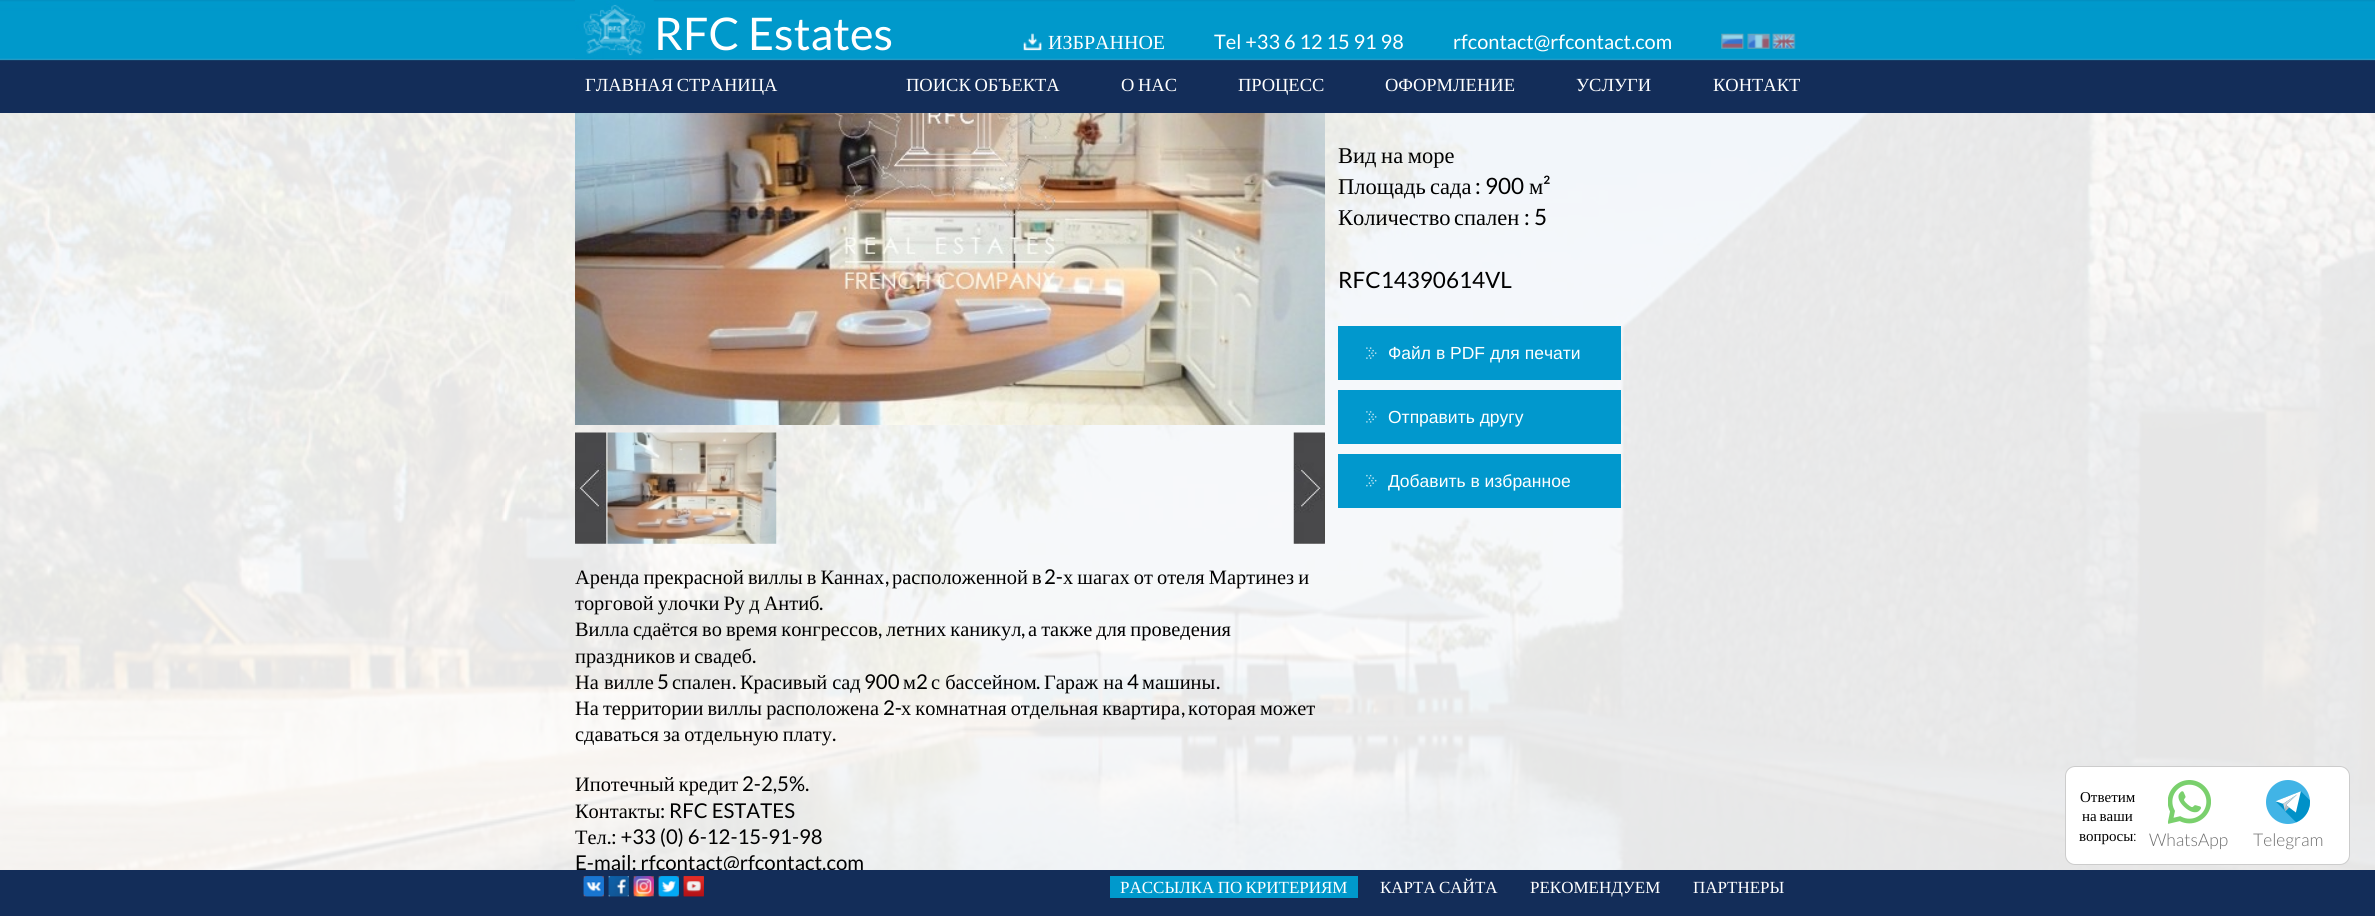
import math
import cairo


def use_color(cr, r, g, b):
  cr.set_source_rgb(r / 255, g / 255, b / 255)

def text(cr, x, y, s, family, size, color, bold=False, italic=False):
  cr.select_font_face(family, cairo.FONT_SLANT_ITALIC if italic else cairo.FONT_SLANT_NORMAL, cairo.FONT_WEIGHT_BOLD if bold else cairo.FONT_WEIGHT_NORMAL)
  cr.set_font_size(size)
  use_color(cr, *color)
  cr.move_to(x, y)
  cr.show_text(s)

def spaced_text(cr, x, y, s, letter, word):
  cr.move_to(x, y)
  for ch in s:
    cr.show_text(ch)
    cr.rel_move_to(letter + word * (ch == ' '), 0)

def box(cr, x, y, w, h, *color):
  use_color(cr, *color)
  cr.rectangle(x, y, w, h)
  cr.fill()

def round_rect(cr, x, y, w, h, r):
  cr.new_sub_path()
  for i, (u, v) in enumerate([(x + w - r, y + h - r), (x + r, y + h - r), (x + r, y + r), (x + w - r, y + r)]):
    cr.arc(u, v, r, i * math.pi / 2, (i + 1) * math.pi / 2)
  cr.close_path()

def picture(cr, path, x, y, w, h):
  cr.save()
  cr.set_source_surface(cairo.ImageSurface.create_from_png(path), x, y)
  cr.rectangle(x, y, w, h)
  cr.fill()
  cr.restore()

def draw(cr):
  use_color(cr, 255, 255, 255)
  cr.paint()
  box(cr, 0, 61, 2375, 52, 19, 45, 89)
  picture(cr, "img_01.png", 0, 0, 2375, 61)
  picture(cr, "img_02.png", 575, 0, 79, 59)
  picture(cr, "img_03.png", 1023, 33, 19, 18)
  picture(cr, "img_04.png", 1721, 33, 24, 16)
  picture(cr, "img_05.png", 1747, 33, 24, 16)
  picture(cr, "img_06.png", 1772, 33, 24, 16)
  picture(cr, "img_07.png", 0, 113, 2375, 757)
  box(cr, 1338, 326, 283, 54, 1, 152, 205)
  picture(cr, "img_08.png", 1366, 347, 11, 12)
  box(cr, 1338, 390, 283, 54, 1, 152, 205)
  picture(cr, "img_09.png", 1366, 411, 11, 12)
  box(cr, 1338, 454, 283, 54, 1, 152, 205)
  picture(cr, "img_10.png", 1366, 474, 11, 13)
  picture(cr, "img_11.png", 575, 113, 750, 312)
  picture(cr, "img_12.png", 575, 432, 32, 112)
  picture(cr, "img_13.png", 607, 432, 170, 112)
  picture(cr, "img_14.png", 1293, 432, 32, 112)
  use_color(cr, 255, 255, 255)
  round_rect(cr, 2065.5, 766.5, 284, 98, 9.5)
  cr.fill_preserve()
  use_color(cr, 204, 204, 204)
  cr.set_line_width(1)
  cr.stroke()
  picture(cr, "img_15.png", 2168, 780, 43, 44)
  picture(cr, "img_16.png", 2266, 780, 44, 44)
  text(cr, 654, 50, "RFC Estates", "Lato", 45, (255, 255, 255))
  text(cr, 1048, 49, "ИЗБРАННОЕ", "Liberation Serif", 20, (255, 255, 255))
  text(cr, 1214, 49, "Tel +33 6 12 15 91 98", "Lato", 20, (255, 255, 255))
  text(cr, 1453, 49, "rfcontact@rfcontact.com", "Lato", 20, (255, 255, 255))
  cr.select_font_face("Liberation Serif")
  cr.set_font_size(18.5)
  spaced_text(cr, 585, 91, "ГЛАВНАЯ СТРАНИЦА", 0, -1)
  spaced_text(cr, 906, 91, "ПОИСК ОБЪЕКТА", 0, -1)
  spaced_text(cr, 1121, 91, "О НАС", 0, -1)
  text(cr, 1238, 91, "ПРОЦЕСС", "Liberation Serif", 18.5, (255, 255, 255))
  text(cr, 1385, 91, "ОФОРМЛЕНИЕ", "Liberation Serif", 18.5, (255, 255, 255))
  text(cr, 1576, 91, "УСЛУГИ", "Liberation Serif", 18.5, (255, 255, 255))
  text(cr, 1713, 91, "КОНТАКТ", "Liberation Serif", 18.5, (255, 255, 255))
  cr.set_font_size(22.5)
  use_color(cr, 0, 0, 0)
  spaced_text(cr, 1338, 163, "Вид на море", 0, -1)
  text(cr, 1338, 194, "Площадь", "Liberation Serif", 22.5, (0, 0, 0))
  text(cr, 1430, 194, "сада", "Liberation Serif", 22.5, (0, 0, 0))
  text(cr, 1475, 194, ": 900", "Lato", 22.5, (0, 0, 0))
  text(cr, 1529, 194, "м", "Liberation Serif", 22.5, (0, 0, 0))
  text(cr, 1543, 194, "²", "Lato", 22.5, (0, 0, 0))
  text(cr, 1338, 225, "Количество", "Liberation Serif", 22.5, (0, 0, 0))
  text(cr, 1454, 225, "спален", "Liberation Serif", 22.5, (0, 0, 0))
  text(cr, 1524, 225, ": 5", "Lato", 22.5, (0, 0, 0))
  text(cr, 1338, 288, "RFC14390614VL", "Lato", 22.5, (0, 0, 0))
  text(cr, 1388, 359, "Файл в PDF для печати", "Liberation Sans", 17.5, (255, 255, 255))
  text(cr, 1388, 423, "Отправить другу", "Liberation Sans", 17.5, (255, 255, 255))
  text(cr, 1388, 487, "Добавить в избранное", "Liberation Sans", 17.5, (255, 255, 255))
  cr.select_font_face("Liberation Serif")
  cr.set_font_size(20.4)
  use_color(cr, 0, 0, 0)
  spaced_text(cr, 575, 584, "Аренда прекрасной виллы в Каннах", 0, -1)
  text(cr, 885, 584, ",", "Lato", 20.4, (0, 0, 0))
  cr.select_font_face("Liberation Serif")
  spaced_text(cr, 892, 584, "расположенной в", 0, -1)
  text(cr, 1044, 584, "2-", "Lato", 20.4, (0, 0, 0))
  cr.select_font_face("Liberation Serif")
  spaced_text(cr, 1063, 584, "х шагах от отеля Мартинез и", 0, -1)
  spaced_text(cr, 575, 610, "торговой улочки Ру д Антиб", 0, -1)
  text(cr, 819, 610, ".", "Lato", 20.4, (0, 0, 0))
  cr.select_font_face("Liberation Serif")
  spaced_text(cr, 575, 636, "Вилла сдаётся во время конгрессов", 0, -1)
  text(cr, 878, 636, ",", "Lato", 20.4, (0, 0, 0))
  cr.select_font_face("Liberation Serif")
  spaced_text(cr, 886, 636, "летних каникул", 0, -1)
  text(cr, 1021, 636, ",", "Lato", 20.4, (0, 0, 0))
  cr.select_font_face("Liberation Serif")
  spaced_text(cr, 1028, 636, "а также для проведения", 0, -1)
  spaced_text(cr, 575, 663, "праздников и свадеб", 0, -1)
  text(cr, 752, 663, ".", "Lato", 20.4, (0, 0, 0))
  text(cr, 575, 689, "На вилле", "Liberation Serif", 20.4, (0, 0, 0))
  text(cr, 657, 689, "5", "Lato", 20.4, (0, 0, 0))
  text(cr, 672, 689, "спален", "Liberation Serif", 20.4, (0, 0, 0))
  text(cr, 732, 689, ".", "Lato", 20.4, (0, 0, 0))
  text(cr, 740, 689, "Красивый сад", "Liberation Serif", 20.4, (0, 0, 0))
  text(cr, 864, 689, "900", "Lato", 20.4, (0, 0, 0))
  text(cr, 903, 689, "м", "Liberation Serif", 20.4, (0, 0, 0))
  text(cr, 916, 689, "2", "Lato", 20.4, (0, 0, 0))
  text(cr, 931, 689, "с бассейном", "Liberation Serif", 20.4, (0, 0, 0))
  text(cr, 1036, 689, ".", "Lato", 20.4, (0, 0, 0))
  text(cr, 1044, 689, "Гараж на", "Liberation Serif", 20.4, (0, 0, 0))
  text(cr, 1127, 689, "4", "Lato", 20.4, (0, 0, 0))
  text(cr, 1142, 689, "машины", "Liberation Serif", 20.4, (0, 0, 0))
  text(cr, 1216, 689, ".", "Lato", 20.4, (0, 0, 0))
  cr.select_font_face("Liberation Serif")
  spaced_text(cr, 575, 715, "На территории виллы расположена", 0, -1)
  text(cr, 883, 715, "2-", "Lato", 20.4, (0, 0, 0))
  cr.select_font_face("Liberation Serif")
  spaced_text(cr, 901, 715, "х комнатная отдельная квартира", 0, -1)
  text(cr, 1181, 715, ",", "Lato", 20.4, (0, 0, 0))
  cr.select_font_face("Liberation Serif")
  spaced_text(cr, 1188, 715, "которая может", 0, -1)
  spaced_text(cr, 575, 741, "сдаваться за отдельную плату", 0, -1)
  text(cr, 832, 741, ".", "Lato", 20.4, (0, 0, 0))
  cr.select_font_face("Liberation Serif")
  spaced_text(cr, 575, 791, "Ипотечный кредит", 0, -1)
  text(cr, 742, 791, "2-2,5%.", "Lato", 20.4, (0, 0, 0))
  text(cr, 575, 818, "Контакты", "Liberation Serif", 20.4, (0, 0, 0))
  text(cr, 660, 818, ": RFC ESTATES", "Lato", 20.4, (0, 0, 0))
  text(cr, 575, 844, "Тел", "Liberation Serif", 20.4, (0, 0, 0))
  text(cr, 607, 844, ".: +33 (0) 6-12-15-91-98", "Lato", 20.4, (0, 0, 0))
  text(cr, 575, 870, "E-mail: rfcontact@rfcontact.com", "Lato", 20.4, (0, 0, 0))
  text(cr, 2080, 802, "Ответим", "Liberation Serif", 15, (0, 0, 0))
  spaced_text(cr, 2082, 821, "на ваши", 0, -1)
  text(cr, 2079, 841, "вопросы", "Liberation Serif", 15, (0, 0, 0))
  text(cr, 2133, 841, ":", "Lato Light", 15, (0, 0, 0))
  text(cr, 2149, 846, "WhatsApp", "Lato Light", 17.5, (110, 110, 110))
  text(cr, 2253, 846, "Telegram", "Lato Light", 17.5, (110, 110, 110))
  box(cr, 0, 870, 2375, 46, 19, 45, 89)
  picture(cr, "img_17.png", 583, 876, 21, 21)
  picture(cr, "img_18.png", 583, 876, 21, 21)
  picture(cr, "img_19.png", 608, 876, 21, 21)
  picture(cr, "img_20.png", 608, 876, 21, 21)
  picture(cr, "img_21.png", 633, 876, 21, 21)
  picture(cr, "img_22.png", 633, 876, 21, 21)
  picture(cr, "img_23.png", 658, 876, 21, 21)
  picture(cr, "img_24.png", 658, 876, 21, 21)
  picture(cr, "img_25.png", 683, 876, 21, 21)
  picture(cr, "img_26.png", 683, 876, 21, 21)
  box(cr, 1110, 876, 248, 22, 0, 153, 204)
  cr.select_font_face("Liberation Serif")
  cr.set_font_size(17)
  use_color(cr, 255, 255, 255)
  spaced_text(cr, 1120, 893, "РАССЫЛКА ПО КРИТЕРИЯМ", 0, -1)
  spaced_text(cr, 1380, 893, "КАРТА САЙТА", 0, -1)
  text(cr, 1530, 893, "РЕКОМЕНДУЕМ", "Liberation Serif", 17, (255, 255, 255))
  text(cr, 1693, 893, "ПАРТНЕРЫ", "Liberation Serif", 17, (255, 255, 255))


surface = cairo.ImageSurface(cairo.FORMAT_RGB24, 2375, 916)
cr = cairo.Context(surface)
options = cairo.FontOptions()
options.set_hint_metrics(cairo.HINT_METRICS_OFF)
options.set_hint_style(cairo.HINT_STYLE_NONE)
cr.set_font_options(options)
cr.set_miter_limit(4)
draw(cr)
surface.write_to_png("out.png")
